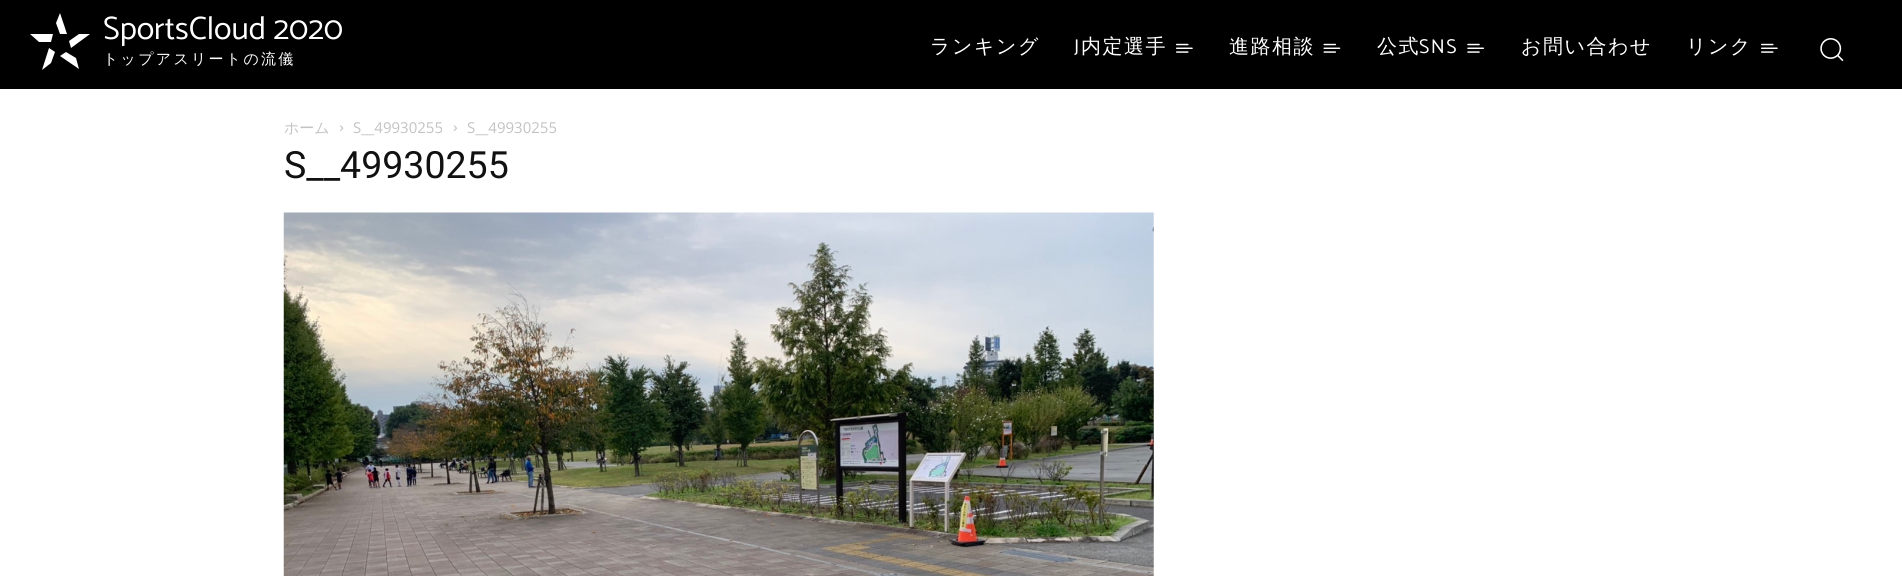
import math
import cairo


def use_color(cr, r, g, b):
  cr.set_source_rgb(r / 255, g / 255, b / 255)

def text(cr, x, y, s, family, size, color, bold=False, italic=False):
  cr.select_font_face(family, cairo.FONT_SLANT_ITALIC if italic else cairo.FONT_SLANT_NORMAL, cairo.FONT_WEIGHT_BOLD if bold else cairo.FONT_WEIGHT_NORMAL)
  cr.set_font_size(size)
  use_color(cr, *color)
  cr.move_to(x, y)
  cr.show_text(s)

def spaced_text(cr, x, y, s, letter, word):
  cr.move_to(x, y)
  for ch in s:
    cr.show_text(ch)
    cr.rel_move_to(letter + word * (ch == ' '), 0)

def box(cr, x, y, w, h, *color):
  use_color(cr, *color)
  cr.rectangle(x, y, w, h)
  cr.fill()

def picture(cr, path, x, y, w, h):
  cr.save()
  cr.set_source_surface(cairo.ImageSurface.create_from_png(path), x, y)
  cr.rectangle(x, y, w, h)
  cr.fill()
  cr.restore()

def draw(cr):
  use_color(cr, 255, 255, 255)
  cr.paint()
  box(cr, 0, 0, 1902, 89, 0, 0, 0)
  use_color(cr, 255, 255, 255)
  cr.new_path()
  cr.move_to(30, 34)
  cr.line_to(39, 42)
  cr.line_to(51, 42)
  cr.line_to(53, 34)
  cr.close_path()
  cr.move_to(42, 70)
  cr.line_to(51, 63)
  cr.line_to(55, 52)
  cr.line_to(49, 48)
  cr.close_path()
  cr.move_to(66, 52)
  cr.line_to(60, 56)
  cr.line_to(79, 69)
  cr.line_to(76, 58)
  cr.close_path()
  cr.move_to(90, 34)
  cr.line_to(79, 34)
  cr.line_to(69, 41)
  cr.line_to(71, 48)
  cr.close_path()
  cr.move_to(60, 13)
  cr.line_to(56, 23)
  cr.line_to(60, 34)
  cr.line_to(67, 34)
  cr.close_path()
  cr.fill()
  picture(cr, "img_01.png", 1176, 43, 17, 10)
  picture(cr, "img_02.png", 1323, 43, 18, 10)
  picture(cr, "img_03.png", 1467, 43, 17, 10)
  picture(cr, "img_01.png", 1761, 43, 17, 10)
  picture(cr, "img_04.png", 1820, 38, 24, 23)
  picture(cr, "img_05.png", 340, 125, 4, 6)
  picture(cr, "img_06.png", 453, 125, 4, 6)
  picture(cr, "img_07.png", 283, 212, 871, 364)
  text(cr, 103, 39, "SportsCloud 2020", "Catamaran", 32.5, (255, 255, 255))
  cr.select_font_face("WenQuanYi Zen Hei Medium")
  cr.set_font_size(15)
  spaced_text(cr, 103, 64, "トップアスリートの流儀", 2.25, 0)
  cr.set_font_size(20)
  spaced_text(cr, 930, 53, "ランキング", 1.5, 0)
  cr.select_font_face("Catamaran")
  spaced_text(cr, 1074, 53, "J", 1.5, 0)
  cr.select_font_face("WenQuanYi Zen Hei Medium")
  spaced_text(cr, 1081, 53, "内定選手", 1.5, 0)
  spaced_text(cr, 1229, 53, "進路相談", 1.5, 0)
  spaced_text(cr, 1377, 53, "公式", 1.5, 0)
  cr.select_font_face("Catamaran")
  spaced_text(cr, 1419, 53, "SNS", 1.5, 0)
  cr.select_font_face("WenQuanYi Zen Hei Medium")
  spaced_text(cr, 1521, 53, "お問い合わせ", 1.5, 0)
  spaced_text(cr, 1686, 53, "リンク", 1.5, 0)
  text(cr, 284, 133, "ホーム", "WenQuanYi Zen Hei Medium", 15, (195, 195, 195))
  text(cr, 353, 133, "S__49930255", "Open Sans", 15, (195, 195, 195))
  text(cr, 467, 133, "S__49930255", "Open Sans", 15, (195, 195, 195))
  text(cr, 284, 178, "S__49930255", "Roboto", 37.5, (17, 17, 17))


surface = cairo.ImageSurface(cairo.FORMAT_RGB24, 1902, 576)
cr = cairo.Context(surface)
options = cairo.FontOptions()
options.set_hint_metrics(cairo.HINT_METRICS_OFF)
options.set_hint_style(cairo.HINT_STYLE_NONE)
cr.set_font_options(options)
cr.set_miter_limit(4)
draw(cr)
surface.write_to_png("out.png")
